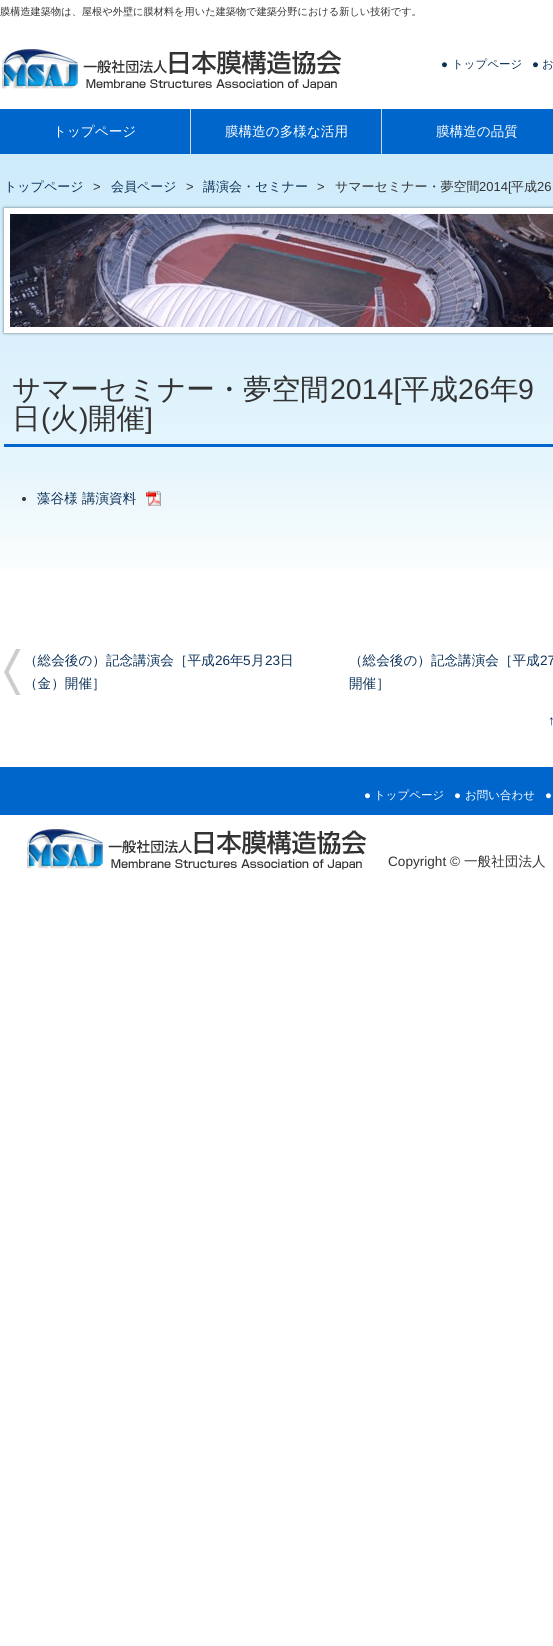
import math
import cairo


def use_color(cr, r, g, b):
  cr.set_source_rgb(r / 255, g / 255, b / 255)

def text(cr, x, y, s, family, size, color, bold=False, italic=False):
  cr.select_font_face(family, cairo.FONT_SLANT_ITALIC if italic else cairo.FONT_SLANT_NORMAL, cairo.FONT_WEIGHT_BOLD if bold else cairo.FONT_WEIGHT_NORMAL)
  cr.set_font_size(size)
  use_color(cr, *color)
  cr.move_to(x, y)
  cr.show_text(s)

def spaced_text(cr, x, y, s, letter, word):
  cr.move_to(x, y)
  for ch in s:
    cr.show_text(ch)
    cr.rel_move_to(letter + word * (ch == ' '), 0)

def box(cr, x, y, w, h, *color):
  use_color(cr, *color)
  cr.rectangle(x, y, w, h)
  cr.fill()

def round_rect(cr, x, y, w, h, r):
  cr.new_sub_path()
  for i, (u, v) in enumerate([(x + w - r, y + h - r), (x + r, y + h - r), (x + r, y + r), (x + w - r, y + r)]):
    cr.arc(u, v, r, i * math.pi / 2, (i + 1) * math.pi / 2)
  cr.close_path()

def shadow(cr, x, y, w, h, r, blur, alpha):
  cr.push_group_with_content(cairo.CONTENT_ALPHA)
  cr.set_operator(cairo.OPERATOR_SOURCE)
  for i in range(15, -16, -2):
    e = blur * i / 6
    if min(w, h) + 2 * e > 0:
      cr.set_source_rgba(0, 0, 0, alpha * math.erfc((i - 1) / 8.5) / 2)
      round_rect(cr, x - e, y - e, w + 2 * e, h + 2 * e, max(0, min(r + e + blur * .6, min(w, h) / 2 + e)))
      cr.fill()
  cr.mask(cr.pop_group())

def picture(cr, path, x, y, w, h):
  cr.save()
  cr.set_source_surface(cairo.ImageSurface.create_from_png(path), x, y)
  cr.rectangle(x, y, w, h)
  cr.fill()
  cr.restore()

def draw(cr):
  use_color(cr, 255, 255, 255)
  cr.paint()
  picture(cr, "img_01.png", 0, 109, 553, 460)
  picture(cr, "img_02.png", 2, 49, 339, 41)
  box(cr, 190, 109, 1, 45, 215, 215, 215)
  box(cr, 381, 109, 1, 45, 215, 215, 215)
  use_color(cr, 0, 0, 0)
  shadow(cr, 4, 208, 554, 125, 0, 1.5, 0.5)
  box(cr, 4, 208, 549, 125, 255, 255, 255)
  picture(cr, "img_03.png", 10, 214, 543, 113)
  box(cr, 4, 444, 549, 3, 0, 102, 204)
  use_color(cr, 51, 51, 51)
  cr.arc(24, 499, 2, 0, 2 * math.pi)
  cr.fill()
  picture(cr, "img_04.png", 146, 491, 15, 15)
  picture(cr, "img_05.png", 4, 649, 17, 46)
  box(cr, 0, 767, 553, 48, 0, 102, 204)
  picture(cr, "img_02.png", 27, 829, 339, 41)
  text(cr, 0, 15, "膜構造建築物は、屋根や外壁に膜材料を用いた建築物で建築分野における新しい技術です。", "WenQuanYi Zen Hei Medium", 10.2, (51, 51, 51))
  text(cr, 441, 68, "●", "Liberation Sans", 11.5, (12, 49, 88))
  text(cr, 452, 68, "トップページ", "WenQuanYi Zen Hei Medium", 11.5, (12, 49, 88))
  text(cr, 532, 68, "●", "Liberation Sans", 11.5, (12, 49, 88))
  text(cr, 542, 68, "お", "WenQuanYi Zen Hei Medium", 11.5, (12, 49, 88))
  text(cr, 53, 136, "トップページ", "WenQuanYi Zen Hei Medium", 13.6, (255, 255, 255))
  text(cr, 225, 136, "膜構造の多様な活用", "WenQuanYi Zen Hei Medium", 13.6, (255, 255, 255))
  text(cr, 436, 136, "膜構造の品質", "WenQuanYi Zen Hei Medium", 13.6, (255, 255, 255))
  text(cr, 4, 191, "トップページ", "WenQuanYi Zen Hei Medium", 13, (12, 49, 88))
  cr.select_font_face("Liberation Sans")
  use_color(cr, 51, 51, 51)
  spaced_text(cr, 93, 191, ">", 10, 0)
  text(cr, 111, 191, "会員ページ", "WenQuanYi Zen Hei Medium", 13, (12, 49, 88))
  cr.select_font_face("Liberation Sans")
  use_color(cr, 51, 51, 51)
  spaced_text(cr, 186, 191, ">", 10, 0)
  text(cr, 203, 191, "講演会・セミナー", "WenQuanYi Zen Hei Medium", 13, (12, 49, 88))
  cr.select_font_face("Liberation Sans")
  use_color(cr, 51, 51, 51)
  spaced_text(cr, 317, 191, ">", 10, 0)
  text(cr, 335, 191, "サマーセミナー・夢空間", "WenQuanYi Zen Hei Medium", 13, (51, 51, 51))
  text(cr, 479, 191, "2014[", "Liberation Sans", 13, (51, 51, 51))
  text(cr, 511, 191, "平成", "WenQuanYi Zen Hei Medium", 13, (51, 51, 51))
  text(cr, 537, 191, "26", "Liberation Sans", 13, (51, 51, 51))
  text(cr, 12, 399, "サマーセミナー・夢空間", "WenQuanYi Zen Hei Medium", 28.5, (51, 51, 51))
  text(cr, 330, 399, "2014[", "Liberation Sans", 28.5, (51, 51, 51))
  text(cr, 401, 399, "平成", "WenQuanYi Zen Hei Medium", 28.5, (51, 51, 51))
  text(cr, 458, 399, "26", "Liberation Sans", 28.5, (51, 51, 51))
  text(cr, 490, 399, "年", "WenQuanYi Zen Hei Medium", 28.5, (51, 51, 51))
  text(cr, 518, 399, "9", "Liberation Sans", 28.5, (51, 51, 51))
  text(cr, 12, 428, "日", "WenQuanYi Zen Hei Medium", 28.5, (51, 51, 51))
  text(cr, 41, 428, "(", "Liberation Sans", 28.5, (51, 51, 51))
  text(cr, 50, 428, "火", "WenQuanYi Zen Hei Medium", 28.5, (51, 51, 51))
  text(cr, 79, 428, ")", "Liberation Sans", 28.5, (51, 51, 51))
  text(cr, 88, 428, "開催", "WenQuanYi Zen Hei Medium", 28.5, (51, 51, 51))
  text(cr, 145, 428, "]", "Liberation Sans", 28.5, (51, 51, 51))
  text(cr, 37, 503, "藻谷様 講演資料", "WenQuanYi Zen Hei Medium", 13.6, (12, 49, 88))
  text(cr, 24, 665, "（総会後の）記念講演会［平成", "WenQuanYi Zen Hei Medium", 13.6, (12, 49, 88))
  text(cr, 215, 665, "26", "Liberation Sans", 13.6, (12, 49, 88))
  text(cr, 230, 665, "年", "WenQuanYi Zen Hei Medium", 13.6, (12, 49, 88))
  text(cr, 243, 665, "5", "Liberation Sans", 13.6, (12, 49, 88))
  text(cr, 251, 665, "月", "WenQuanYi Zen Hei Medium", 13.6, (12, 49, 88))
  text(cr, 265, 665, "23", "Liberation Sans", 13.6, (12, 49, 88))
  text(cr, 280, 665, "日", "WenQuanYi Zen Hei Medium", 13.6, (12, 49, 88))
  text(cr, 24, 688, "（金）開催］", "WenQuanYi Zen Hei Medium", 13.6, (12, 49, 88))
  text(cr, 349, 665, "（総会後の）記念講演会［平成", "WenQuanYi Zen Hei Medium", 13.6, (12, 49, 88))
  text(cr, 540, 665, "27", "Liberation Sans", 13.6, (12, 49, 88))
  text(cr, 349, 688, "開催］", "WenQuanYi Zen Hei Medium", 13.6, (12, 49, 88))
  text(cr, 548, 725, "↑", "Liberation Sans", 13.6, (12, 49, 88))
  text(cr, 364, 799, "●", "Liberation Sans", 11.5, (255, 255, 255))
  text(cr, 374, 799, "トップページ", "WenQuanYi Zen Hei Medium", 11.5, (255, 255, 255))
  text(cr, 454, 799, "●", "Liberation Sans", 11.5, (255, 255, 255))
  text(cr, 465, 799, "お問い合わせ", "WenQuanYi Zen Hei Medium", 11.5, (255, 255, 255))
  text(cr, 545, 799, "●", "Liberation Sans", 11.5, (255, 255, 255))
  text(cr, 388, 866, "Copyright ©", "Liberation Sans", 13.6, (51, 51, 51))
  text(cr, 464, 866, "一般社団法人", "WenQuanYi Zen Hei Medium", 13.6, (51, 51, 51))


surface = cairo.ImageSurface(cairo.FORMAT_RGB24, 553, 1646)
cr = cairo.Context(surface)
options = cairo.FontOptions()
options.set_hint_metrics(cairo.HINT_METRICS_OFF)
options.set_hint_style(cairo.HINT_STYLE_NONE)
cr.set_font_options(options)
cr.set_miter_limit(4)
draw(cr)
surface.write_to_png("out.png")
